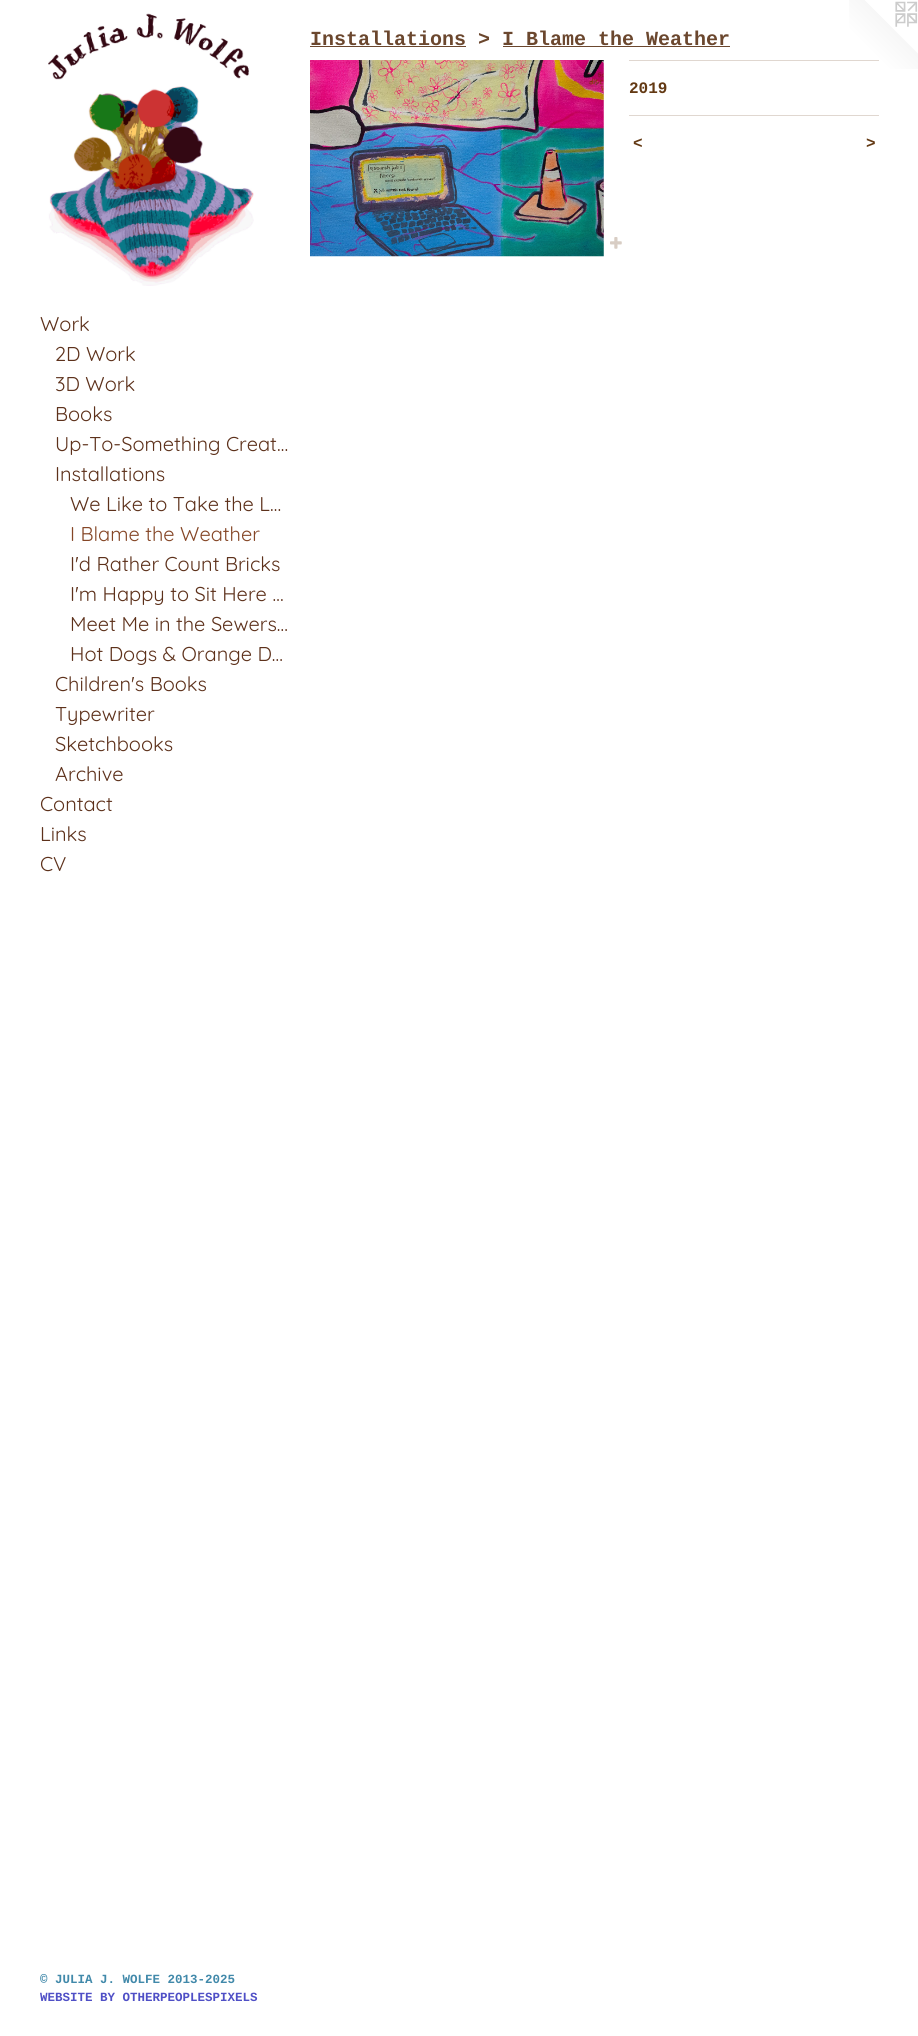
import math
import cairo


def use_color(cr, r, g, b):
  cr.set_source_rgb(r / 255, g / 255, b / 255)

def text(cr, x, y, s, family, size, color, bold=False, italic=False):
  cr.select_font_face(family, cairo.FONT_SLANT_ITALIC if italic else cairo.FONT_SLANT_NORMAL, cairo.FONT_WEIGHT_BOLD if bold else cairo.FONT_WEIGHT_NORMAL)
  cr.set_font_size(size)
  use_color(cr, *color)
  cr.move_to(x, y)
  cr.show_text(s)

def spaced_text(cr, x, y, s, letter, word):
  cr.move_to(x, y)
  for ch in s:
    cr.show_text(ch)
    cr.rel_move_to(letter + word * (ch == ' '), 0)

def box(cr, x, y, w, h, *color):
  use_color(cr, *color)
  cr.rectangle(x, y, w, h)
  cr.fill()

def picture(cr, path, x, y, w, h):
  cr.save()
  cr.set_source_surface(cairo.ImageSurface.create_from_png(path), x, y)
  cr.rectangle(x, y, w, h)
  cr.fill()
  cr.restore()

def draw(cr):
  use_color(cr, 255, 255, 255)
  cr.paint()
  box(cr, 310, 46, 156, 1, 107, 71, 46)
  box(cr, 503, 46, 227, 1, 107, 71, 46)
  picture(cr, "img_01.png", 310, 60, 294, 197)
  picture(cr, "img_02.png", 610, 237, 12, 12)
  picture(cr, "img_03.png", 849, 0, 69, 69)
  box(cr, 629, 60, 250, 1, 224, 215, 208)
  box(cr, 629, 115, 250, 1, 224, 215, 208)
  picture(cr, "img_04.png", 48, 13, 206, 273)
  text(cr, 310, 45, "Installations > I Blame the Weather", "Liberation Mono", 20, (107, 71, 46), bold=True)
  text(cr, 629, 93, "2019", "Liberation Mono", 16, (99, 57, 19), bold=True)
  cr.select_font_face("Liberation Mono", cairo.FONT_SLANT_ITALIC, cairo.FONT_WEIGHT_BOLD)
  spaced_text(cr, 633, 148, "<", 1, 0)
  spaced_text(cr, 866, 148, ">", 1, 0)
  text(cr, 40, 331, "Work", "Quicksand Light", 20, (93, 49, 27))
  text(cr, 55, 361, "2D Work", "Quicksand Light", 20, (93, 49, 27))
  text(cr, 55, 391, "3D Work", "Quicksand Light", 20, (93, 49, 27))
  text(cr, 55, 421, "Books", "Quicksand Light", 20, (93, 49, 27))
  text(cr, 55, 451, "Up-To-Something Creat…", "Quicksand Light", 20, (93, 49, 27))
  text(cr, 55, 481, "Installations", "Quicksand Light", 20, (93, 49, 27))
  text(cr, 70, 511, "We Like to Take the L…", "Quicksand Light", 20, (93, 49, 27))
  text(cr, 70, 541, "I Blame the Weather", "Quicksand Light", 20, (133, 70, 38))
  text(cr, 70, 571, "I'd Rather Count Bricks", "Quicksand Light", 20, (93, 49, 27))
  text(cr, 70, 601, "I'm Happy to Sit Here …", "Quicksand Light", 20, (93, 49, 27))
  text(cr, 70, 631, "Meet Me in the Sewers…", "Quicksand Light", 20, (93, 49, 27))
  text(cr, 70, 661, "Hot Dogs & Orange D…", "Quicksand Light", 20, (93, 49, 27))
  text(cr, 55, 691, "Children's Books", "Quicksand Light", 20, (93, 49, 27))
  text(cr, 55, 721, "Typewriter", "Quicksand Light", 20, (93, 49, 27))
  text(cr, 55, 751, "Sketchbooks", "Quicksand Light", 20, (93, 49, 27))
  text(cr, 55, 781, "Archive", "Quicksand Light", 20, (93, 49, 27))
  text(cr, 40, 811, "Contact", "Quicksand Light", 20, (93, 49, 27))
  text(cr, 40, 841, "Links", "Quicksand Light", 20, (93, 49, 27))
  text(cr, 40, 871, "CV", "Quicksand Light", 20, (93, 49, 27))
  text(cr, 40, 1983, "© JULIA J. WOLFE 2013-2025", "Liberation Mono", 12.5, (65, 137, 170), bold=True)
  text(cr, 40, 2001, "WEBSITE BY OTHERPEOPLESPIXELS", "Liberation Mono", 12.5, (79, 79, 198), bold=True)


surface = cairo.ImageSurface(cairo.FORMAT_RGB24, 918, 2036)
cr = cairo.Context(surface)
options = cairo.FontOptions()
options.set_hint_metrics(cairo.HINT_METRICS_OFF)
options.set_hint_style(cairo.HINT_STYLE_NONE)
cr.set_font_options(options)
cr.set_miter_limit(4)
draw(cr)
surface.write_to_png("out.png")
